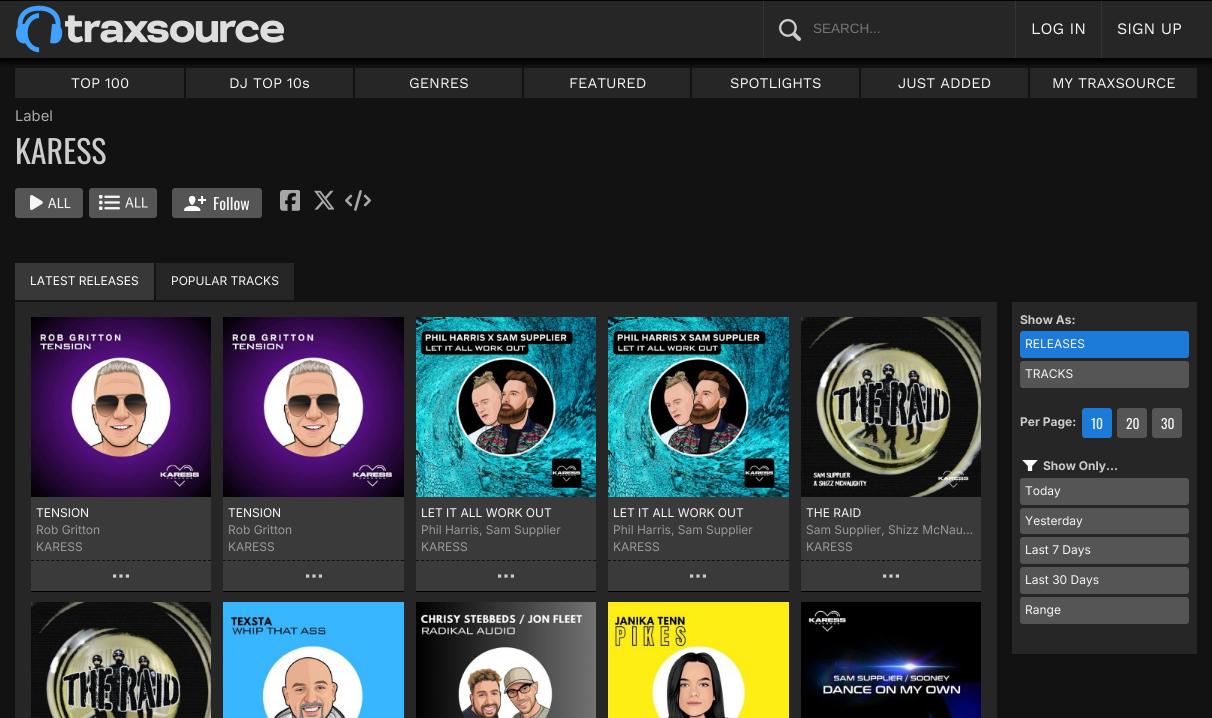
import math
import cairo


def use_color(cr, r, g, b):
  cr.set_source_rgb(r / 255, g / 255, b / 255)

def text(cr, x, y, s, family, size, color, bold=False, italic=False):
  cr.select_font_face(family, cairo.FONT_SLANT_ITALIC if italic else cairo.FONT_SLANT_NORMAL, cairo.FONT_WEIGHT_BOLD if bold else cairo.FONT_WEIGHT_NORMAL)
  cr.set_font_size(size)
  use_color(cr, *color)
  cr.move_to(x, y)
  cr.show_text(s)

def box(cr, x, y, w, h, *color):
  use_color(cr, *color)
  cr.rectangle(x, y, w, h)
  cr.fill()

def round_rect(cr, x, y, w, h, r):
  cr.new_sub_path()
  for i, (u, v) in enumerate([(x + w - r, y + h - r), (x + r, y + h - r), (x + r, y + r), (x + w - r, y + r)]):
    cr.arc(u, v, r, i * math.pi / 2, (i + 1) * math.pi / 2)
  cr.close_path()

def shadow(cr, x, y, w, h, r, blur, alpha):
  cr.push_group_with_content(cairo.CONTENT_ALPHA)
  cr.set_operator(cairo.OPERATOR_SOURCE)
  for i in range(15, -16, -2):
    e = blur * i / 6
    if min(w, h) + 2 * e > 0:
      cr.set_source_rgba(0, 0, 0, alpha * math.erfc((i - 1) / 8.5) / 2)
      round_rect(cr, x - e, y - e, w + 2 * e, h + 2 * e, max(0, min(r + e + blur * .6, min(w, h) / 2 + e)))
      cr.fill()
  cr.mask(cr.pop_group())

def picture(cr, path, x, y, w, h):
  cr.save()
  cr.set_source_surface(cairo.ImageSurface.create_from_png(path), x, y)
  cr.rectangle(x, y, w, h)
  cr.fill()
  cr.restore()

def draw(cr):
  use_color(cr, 18, 18, 18)
  cr.paint()
  box(cr, 15, 68, 169, 30, 38, 38, 38)
  box(cr, 186, 68, 167, 30, 38, 38, 38)
  box(cr, 355, 68, 167, 30, 38, 38, 38)
  box(cr, 524, 68, 166, 30, 38, 38, 38)
  box(cr, 692, 68, 167, 30, 38, 38, 38)
  box(cr, 861, 68, 167, 30, 38, 38, 38)
  box(cr, 1030, 68, 167, 30, 38, 38, 38)
  use_color(cr, 0, 0, 0)
  shadow(cr, -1, 3, 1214, 60, 0, 2.5, 1)
  box(cr, 0, 1, 1212, 57, 38, 38, 38)
  box(cr, 763, 0, 1, 58, 51, 51, 51)
  box(cr, 1015, 0, 1, 58, 51, 51, 51)
  box(cr, 1101, 0, 1, 58, 51, 51, 51)
  box(cr, 0, 0, 1212, 1, 0, 0, 0)
  picture(cr, "img_01.png", 16, 5, 268, 48)
  picture(cr, "img_02.png", 779, 19, 22, 22)
  use_color(cr, 85, 85, 85)
  round_rect(cr, 15, 188, 68, 30, 3)
  cr.fill()
  picture(cr, "img_03.png", 30, 195, 41, 15)
  round_rect(cr, 89, 188, 68, 30, 3)
  cr.fill()
  picture(cr, "img_04.png", 99, 195, 49, 15)
  round_rect(cr, 172, 188, 90, 30, 3)
  cr.fill()
  picture(cr, "img_05.png", 184, 196, 22, 15)
  picture(cr, "img_06.png", 280, 190, 20, 21)
  picture(cr, "img_07.png", 314, 190, 20, 20)
  picture(cr, "img_08.png", 345, 190, 26, 21)
  box(cr, 15, 263, 139, 37, 56, 56, 56)
  box(cr, 156, 263, 138, 37, 38, 38, 38)
  box(cr, 15, 302, 982, 416, 38, 38, 38)
  box(cr, 31, 497, 180, 94, 58, 58, 58)
  picture(cr, "img_09.png", 31, 317, 180, 180)
  cr.new_path()
  cr.move_to(31, 560.5)
  cr.line_to(211, 560.5)
  use_color(cr, 17, 17, 17)
  cr.set_line_width(1)
  cr.set_dash([3, 2.06])
  cr.stroke()
  box(cr, 31, 591, 180, 1, 0, 0, 0)
  picture(cr, "img_10.png", 113, 574, 16, 4)
  box(cr, 223, 497, 181, 94, 58, 58, 58)
  picture(cr, "img_11.png", 223, 317, 181, 180)
  cr.new_path()
  cr.move_to(223, 560.5)
  cr.line_to(404, 560.5)
  use_color(cr, 17, 17, 17)
  cr.set_dash([3, 1.94])
  cr.stroke()
  box(cr, 223, 591, 181, 1, 0, 0, 0)
  picture(cr, "img_10.png", 306, 574, 16, 4)
  box(cr, 416, 497, 180, 94, 58, 58, 58)
  picture(cr, "img_12.png", 416, 317, 180, 180)
  cr.new_path()
  cr.move_to(416, 560.5)
  cr.line_to(596, 560.5)
  use_color(cr, 17, 17, 17)
  cr.set_dash([3, 2.06])
  cr.stroke()
  box(cr, 416, 591, 180, 1, 0, 0, 0)
  picture(cr, "img_10.png", 498, 574, 16, 4)
  box(cr, 608, 497, 181, 94, 58, 58, 58)
  picture(cr, "img_13.png", 608, 317, 181, 180)
  cr.new_path()
  cr.move_to(608, 560.5)
  cr.line_to(789, 560.5)
  use_color(cr, 17, 17, 17)
  cr.set_dash([3, 1.94])
  cr.stroke()
  box(cr, 608, 591, 181, 1, 0, 0, 0)
  picture(cr, "img_10.png", 690, 574, 16, 4)
  box(cr, 801, 497, 180, 94, 58, 58, 58)
  picture(cr, "img_14.png", 801, 317, 180, 180)
  cr.new_path()
  cr.move_to(801, 560.5)
  cr.line_to(981, 560.5)
  use_color(cr, 17, 17, 17)
  cr.set_dash([3, 2.06])
  cr.stroke()
  box(cr, 801, 591, 180, 1, 0, 0, 0)
  picture(cr, "img_10.png", 883, 574, 16, 4)
  picture(cr, "img_15.png", 31, 602, 180, 116)
  picture(cr, "img_16.png", 223, 602, 181, 116)
  picture(cr, "img_17.png", 416, 602, 180, 116)
  picture(cr, "img_18.png", 608, 602, 181, 116)
  picture(cr, "img_19.png", 801, 602, 180, 116)
  box(cr, 1012, 302, 185, 352, 38, 38, 38)
  use_color(cr, 28, 122, 216)
  round_rect(cr, 1020, 331, 169, 27, 3)
  cr.fill()
  use_color(cr, 85, 85, 85)
  round_rect(cr, 1020, 361, 169, 27, 3)
  cr.fill()
  use_color(cr, 28, 122, 216)
  round_rect(cr, 1082, 408, 30, 30, 3)
  cr.fill()
  use_color(cr, 85, 85, 85)
  round_rect(cr, 1117, 408, 30, 30, 3)
  cr.fill()
  round_rect(cr, 1152, 408, 30, 30, 3)
  cr.fill()
  picture(cr, "img_20.png", 1022, 460, 16, 11)
  round_rect(cr, 1020, 478, 169, 27, 3)
  cr.fill()
  round_rect(cr, 1020, 508, 169, 26, 3)
  cr.fill()
  round_rect(cr, 1020, 537, 169, 27, 3)
  cr.fill()
  round_rect(cr, 1020, 567, 169, 27, 3)
  cr.fill()
  round_rect(cr, 1020, 597, 169, 27, 3)
  cr.fill()
  text(cr, 813, 33, "SEARCH...", "Liberation Sans", 13.5, (117, 117, 117))
  text(cr, 1031, 34, "LOG IN", "Work Sans", 16, (246, 246, 246))
  text(cr, 1117, 34, "SIGN UP", "Work Sans", 16, (246, 246, 246))
  text(cr, 71, 88, "TOP 100", "Work Sans", 14.75, (246, 246, 246))
  text(cr, 229, 88, "DJ TOP 10s", "Work Sans", 14.75, (246, 246, 246))
  text(cr, 409, 88, "GENRES", "Work Sans", 14.75, (246, 246, 246))
  text(cr, 569, 88, "FEATURED", "Work Sans", 14.75, (246, 246, 246))
  text(cr, 730, 88, "SPOTLIGHTS", "Work Sans", 14.75, (246, 246, 246))
  text(cr, 898, 88, "JUST ADDED", "Work Sans", 14.75, (246, 246, 246))
  text(cr, 1052, 88, "MY TRAXSOURCE", "Work Sans", 14.75, (246, 246, 246))
  text(cr, 15, 121, "Label", "Inter", 14.75, (170, 170, 170))
  text(cr, 15, 164, "KARESS", "Oswald", 32, (204, 204, 204))
  text(cr, 213, 210, "Follow", "Oswald", 16, (246, 246, 246))
  text(cr, 30, 285, "LATEST RELEASES", "Inter", 12, (255, 255, 255))
  text(cr, 171, 285, "POPULAR TRACKS", "Inter", 12, (246, 246, 246))
  text(cr, 36, 517, "TENSION", "Inter", 12, (246, 246, 246))
  text(cr, 36, 534, "Rob Gritton", "Inter", 12, (153, 153, 153))
  text(cr, 36, 551, "KARESS", "Inter", 12, (153, 153, 153))
  text(cr, 228, 517, "TENSION", "Inter", 12, (246, 246, 246))
  text(cr, 228, 534, "Rob Gritton", "Inter", 12, (153, 153, 153))
  text(cr, 228, 551, "KARESS", "Inter", 12, (153, 153, 153))
  text(cr, 421, 517, "LET IT ALL WORK OUT", "Inter", 12, (246, 246, 246))
  text(cr, 421, 534, "Phil Harris, Sam Supplier", "Inter", 12, (153, 153, 153))
  text(cr, 421, 551, "KARESS", "Inter", 12, (153, 153, 153))
  text(cr, 613, 517, "LET IT ALL WORK OUT", "Inter", 12, (246, 246, 246))
  text(cr, 613, 534, "Phil Harris, Sam Supplier", "Inter", 12, (153, 153, 153))
  text(cr, 613, 551, "KARESS", "Inter", 12, (153, 153, 153))
  text(cr, 806, 517, "THE RAID", "Inter", 12, (246, 246, 246))
  text(cr, 806, 534, "Sam Supplier, Shizz McNau…", "Inter", 12, (153, 153, 153))
  text(cr, 806, 551, "KARESS", "Inter", 12, (153, 153, 153))
  text(cr, 1020, 324, "Show As:", "Inter", 12, (204, 204, 204), bold=True)
  text(cr, 1025, 348, "RELEASES", "Inter", 12, (246, 246, 246))
  text(cr, 1025, 378, "TRACKS", "Inter", 12, (246, 246, 246))
  text(cr, 1020, 426, "Per Page:", "Inter", 12, (204, 204, 204), bold=True)
  text(cr, 1091, 429, "10", "Oswald", 13.5, (246, 246, 246))
  text(cr, 1126, 429, "20", "Oswald", 13.5, (246, 246, 246))
  text(cr, 1161, 429, "30", "Oswald", 13.5, (246, 246, 246))
  text(cr, 1043, 470, "Show Only...", "Inter", 12, (204, 204, 204), bold=True)
  text(cr, 1025, 495, "Today", "Inter", 12, (246, 246, 246))
  text(cr, 1025, 525, "Yesterday", "Inter", 12, (246, 246, 246))
  text(cr, 1025, 554, "Last 7 Days", "Inter", 12, (246, 246, 246))
  text(cr, 1025, 584, "Last 30 Days", "Inter", 12, (246, 246, 246))
  text(cr, 1025, 614, "Range", "Inter", 12, (246, 246, 246))


surface = cairo.ImageSurface(cairo.FORMAT_RGB24, 1212, 718)
cr = cairo.Context(surface)
options = cairo.FontOptions()
options.set_hint_metrics(cairo.HINT_METRICS_OFF)
options.set_hint_style(cairo.HINT_STYLE_NONE)
cr.set_font_options(options)
cr.set_miter_limit(4)
draw(cr)
surface.write_to_png("out.png")
